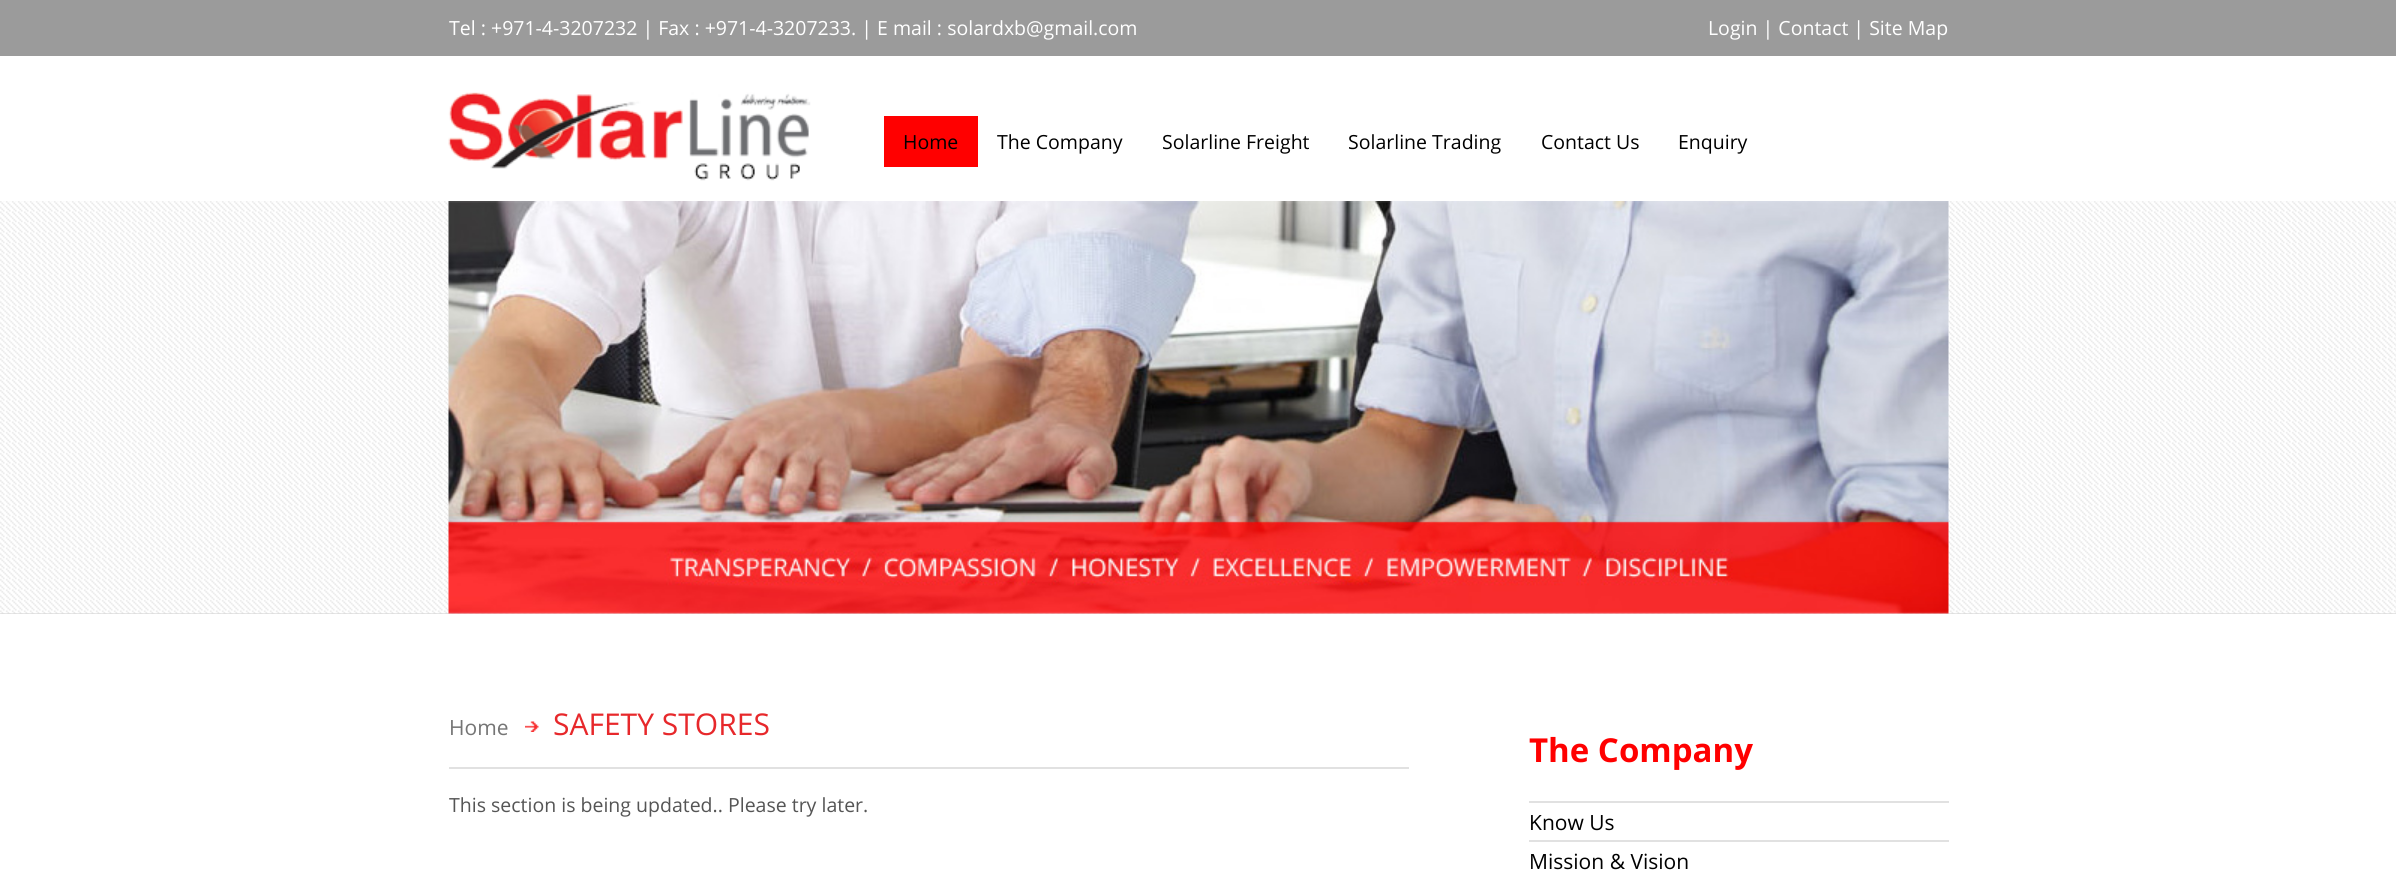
import math
import cairo


def use_color(cr, r, g, b):
  cr.set_source_rgb(r / 255, g / 255, b / 255)

def text(cr, x, y, s, family, size, color, bold=False, italic=False):
  cr.select_font_face(family, cairo.FONT_SLANT_ITALIC if italic else cairo.FONT_SLANT_NORMAL, cairo.FONT_WEIGHT_BOLD if bold else cairo.FONT_WEIGHT_NORMAL)
  cr.set_font_size(size)
  use_color(cr, *color)
  cr.move_to(x, y)
  cr.show_text(s)

def box(cr, x, y, w, h, *color):
  use_color(cr, *color)
  cr.rectangle(x, y, w, h)
  cr.fill()

def picture(cr, path, x, y, w, h):
  cr.save()
  cr.set_source_surface(cairo.ImageSurface.create_from_png(path), x, y)
  cr.rectangle(x, y, w, h)
  cr.fill()
  cr.restore()

def draw(cr):
  use_color(cr, 255, 255, 255)
  cr.paint()
  box(cr, 0, 0, 2396, 56, 155, 155, 155)
  picture(cr, "img_01.png", 448, 92, 363, 89)
  box(cr, 884, 116, 94, 51, 255, 0, 0)
  box(cr, 0, 613, 2396, 1, 204, 204, 204)
  picture(cr, "img_02.png", 0, 201, 2396, 413)
  picture(cr, "img_03.png", 448, 201, 1501, 413)
  box(cr, 449, 767, 960, 2, 225, 225, 225)
  picture(cr, "img_04.png", 525, 721, 14, 11)
  box(cr, 1529, 801, 420, 2, 225, 225, 225)
  box(cr, 1529, 840, 420, 2, 225, 225, 225)
  text(cr, 449, 35, "Tel : +971-4-3207232 | Fax : +971-4-3207233. | E mail : solardxb@gmail.com", "Open Sans", 19.5, (255, 255, 255))
  text(cr, 1708, 35, "Login | Contact | Site Map", "Open Sans", 19.5, (255, 255, 255))
  text(cr, 903, 149, "Home", "Open Sans", 19.5, (0, 0, 0))
  text(cr, 997, 149, "The Company", "Open Sans", 19.5, (0, 0, 0))
  text(cr, 1162, 149, "Solarline Freight", "Open Sans", 19.5, (0, 0, 0))
  text(cr, 1348, 149, "Solarline Trading", "Open Sans", 19.5, (0, 0, 0))
  text(cr, 1541, 149, "Contact Us", "Open Sans", 19.5, (0, 0, 0))
  text(cr, 1678, 149, "Enquiry", "Open Sans", 19.5, (0, 0, 0))
  text(cr, 449, 735, "Home", "Open Sans", 21, (117, 117, 117))
  text(cr, 553, 735, "SAFETY STORES", "Open Sans", 30, (231, 40, 43))
  text(cr, 449, 812, "This section is being updated.. Please try later.", "Open Sans", 19.5, (85, 85, 85))
  text(cr, 1529, 762, "The Company", "Open Sans", 33, (255, 0, 0), bold=True)
  text(cr, 1529, 830, "Know Us", "Open Sans", 21, (0, 0, 0))
  text(cr, 1529, 869, "Mission & Vision", "Open Sans", 21, (0, 0, 0))


surface = cairo.ImageSurface(cairo.FORMAT_RGB24, 2396, 872)
cr = cairo.Context(surface)
options = cairo.FontOptions()
options.set_hint_metrics(cairo.HINT_METRICS_OFF)
options.set_hint_style(cairo.HINT_STYLE_NONE)
cr.set_font_options(options)
cr.set_miter_limit(4)
draw(cr)
surface.write_to_png("out.png")
